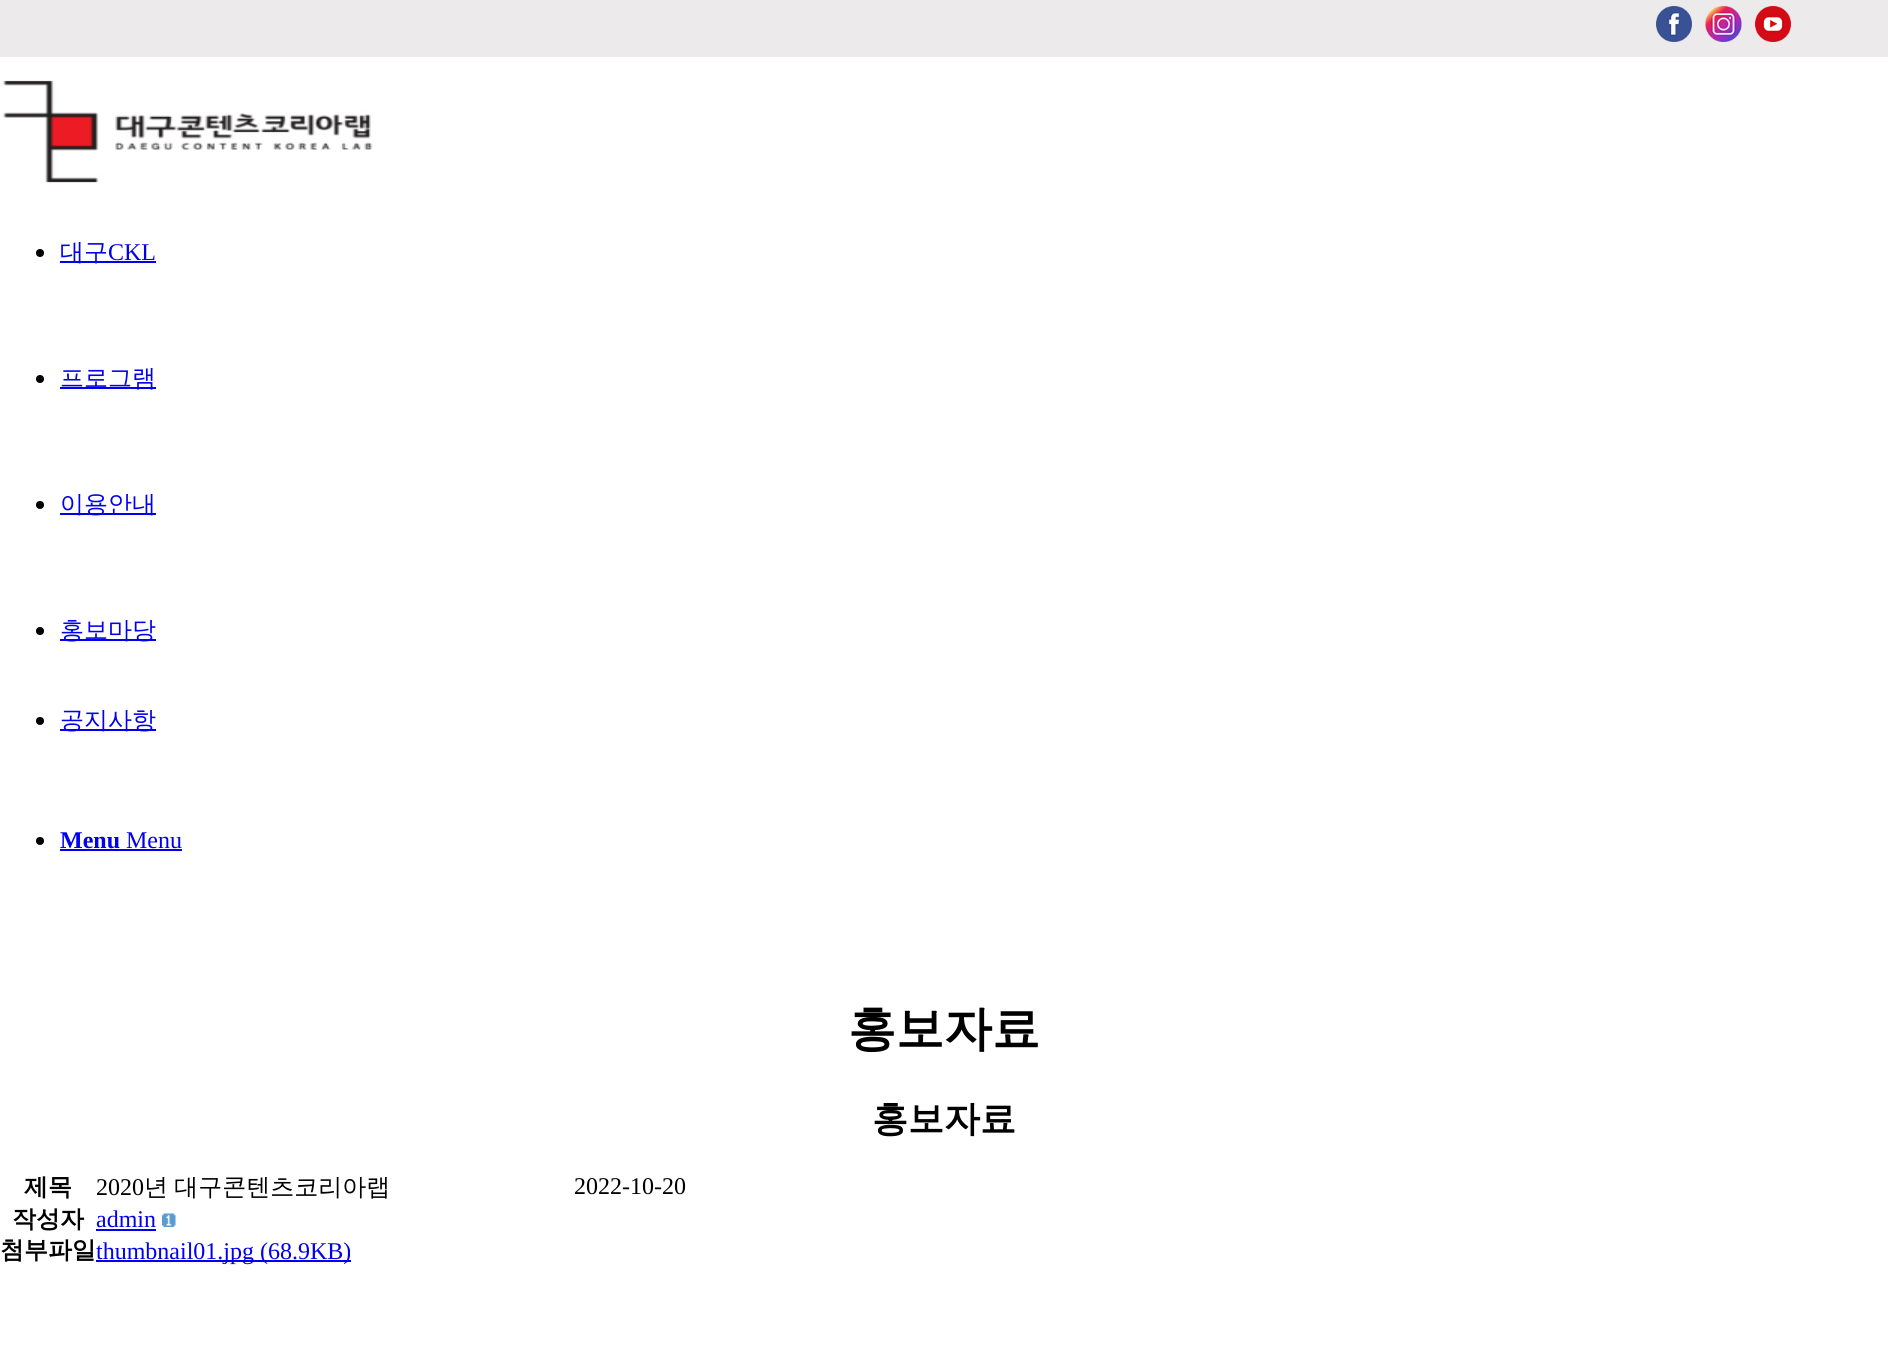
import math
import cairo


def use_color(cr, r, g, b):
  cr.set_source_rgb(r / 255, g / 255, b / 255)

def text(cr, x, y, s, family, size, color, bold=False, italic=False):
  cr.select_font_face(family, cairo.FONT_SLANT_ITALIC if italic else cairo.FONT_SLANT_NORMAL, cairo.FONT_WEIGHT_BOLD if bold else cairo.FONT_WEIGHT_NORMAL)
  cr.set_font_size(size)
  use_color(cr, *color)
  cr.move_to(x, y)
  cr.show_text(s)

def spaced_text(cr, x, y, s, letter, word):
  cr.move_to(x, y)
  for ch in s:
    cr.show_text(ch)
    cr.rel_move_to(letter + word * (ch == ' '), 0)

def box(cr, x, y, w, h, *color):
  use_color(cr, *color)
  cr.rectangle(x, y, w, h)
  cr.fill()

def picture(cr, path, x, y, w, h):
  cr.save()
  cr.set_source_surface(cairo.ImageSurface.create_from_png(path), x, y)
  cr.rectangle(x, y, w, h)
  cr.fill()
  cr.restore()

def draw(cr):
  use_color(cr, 255, 255, 255)
  cr.paint()
  box(cr, 0, 0, 1888, 57, 236, 234, 234)
  picture(cr, "img_01.png", 1656, 6, 36, 36)
  picture(cr, "img_02.png", 1705, 6, 37, 36)
  picture(cr, "img_03.png", 1755, 6, 36, 36)
  picture(cr, "img_04.png", 2, 80, 371, 103)
  use_color(cr, 0, 0, 0)
  cr.arc(40, 253, 4, 0, 2 * math.pi)
  cr.fill()
  box(cr, 60, 261, 96, 2, 0, 0, 238)
  use_color(cr, 0, 0, 0)
  cr.arc(40, 379, 4, 0, 2 * math.pi)
  cr.fill()
  box(cr, 60, 387, 96, 2, 0, 0, 238)
  use_color(cr, 0, 0, 0)
  cr.arc(40, 505, 4, 0, 2 * math.pi)
  cr.fill()
  box(cr, 60, 513, 96, 2, 0, 0, 238)
  use_color(cr, 0, 0, 0)
  cr.arc(40, 631, 4, 0, 2 * math.pi)
  cr.fill()
  box(cr, 60, 639, 96, 2, 0, 0, 238)
  use_color(cr, 0, 0, 0)
  cr.arc(40, 721, 4, 0, 2 * math.pi)
  cr.fill()
  box(cr, 60, 729, 96, 2, 0, 0, 238)
  use_color(cr, 0, 0, 0)
  cr.arc(40, 841, 4, 0, 2 * math.pi)
  cr.fill()
  box(cr, 60, 849, 122, 2, 0, 0, 238)
  box(cr, 96, 1229, 60, 2, 0, 0, 238)
  picture(cr, "img_05.png", 162, 1213, 14, 14)
  box(cr, 96, 1260, 255, 2, 0, 0, 238)
  text(cr, 60, 260, "대구", "WenQuanYi Zen Hei Medium", 24, (0, 0, 238))
  text(cr, 108, 260, "CKL", "Liberation Serif", 24, (0, 0, 238))
  text(cr, 60, 386, "프로그램", "WenQuanYi Zen Hei Medium", 24, (0, 0, 238))
  text(cr, 60, 512, "이용안내", "WenQuanYi Zen Hei Medium", 24, (0, 0, 238))
  text(cr, 60, 638, "홍보마당", "WenQuanYi Zen Hei Medium", 24, (0, 0, 238))
  text(cr, 60, 728, "공지사항", "WenQuanYi Zen Hei Medium", 24, (0, 0, 238))
  text(cr, 60, 848, "Menu", "Liberation Serif", 24, (0, 0, 238), bold=True)
  text(cr, 126, 848, "Menu", "Liberation Serif", 24, (0, 0, 238))
  text(cr, 848, 1045, "홍보자료", "WenQuanYi Zen Hei", 48, (0, 0, 0), bold=True)
  text(cr, 872, 1131, "홍보자료", "WenQuanYi Zen Hei", 36, (0, 0, 0), bold=True)
  text(cr, 24, 1195, "제목", "WenQuanYi Zen Hei", 24, (0, 0, 0), bold=True)
  text(cr, 96, 1195, "2020", "Liberation Serif", 24, (0, 0, 0))
  cr.select_font_face("WenQuanYi Zen Hei Medium")
  spaced_text(cr, 144, 1195, "년 대구콘텐츠코리아랩", 0, -1)
  text(cr, 574, 1194, "2022-10-20", "Liberation Serif", 24, (0, 0, 0))
  text(cr, 12, 1227, "작성자", "WenQuanYi Zen Hei", 24, (0, 0, 0), bold=True)
  text(cr, 96, 1227, "admin", "Liberation Serif", 24, (0, 0, 238))
  text(cr, 0, 1258, "첨부파일", "WenQuanYi Zen Hei", 24, (0, 0, 0), bold=True)
  text(cr, 96, 1259, "thumbnail01.jpg (68.9KB)", "Liberation Serif", 24, (0, 0, 238))


surface = cairo.ImageSurface(cairo.FORMAT_RGB24, 1888, 1353)
cr = cairo.Context(surface)
options = cairo.FontOptions()
options.set_hint_metrics(cairo.HINT_METRICS_OFF)
options.set_hint_style(cairo.HINT_STYLE_NONE)
cr.set_font_options(options)
cr.set_miter_limit(4)
draw(cr)
surface.write_to_png("out.png")
